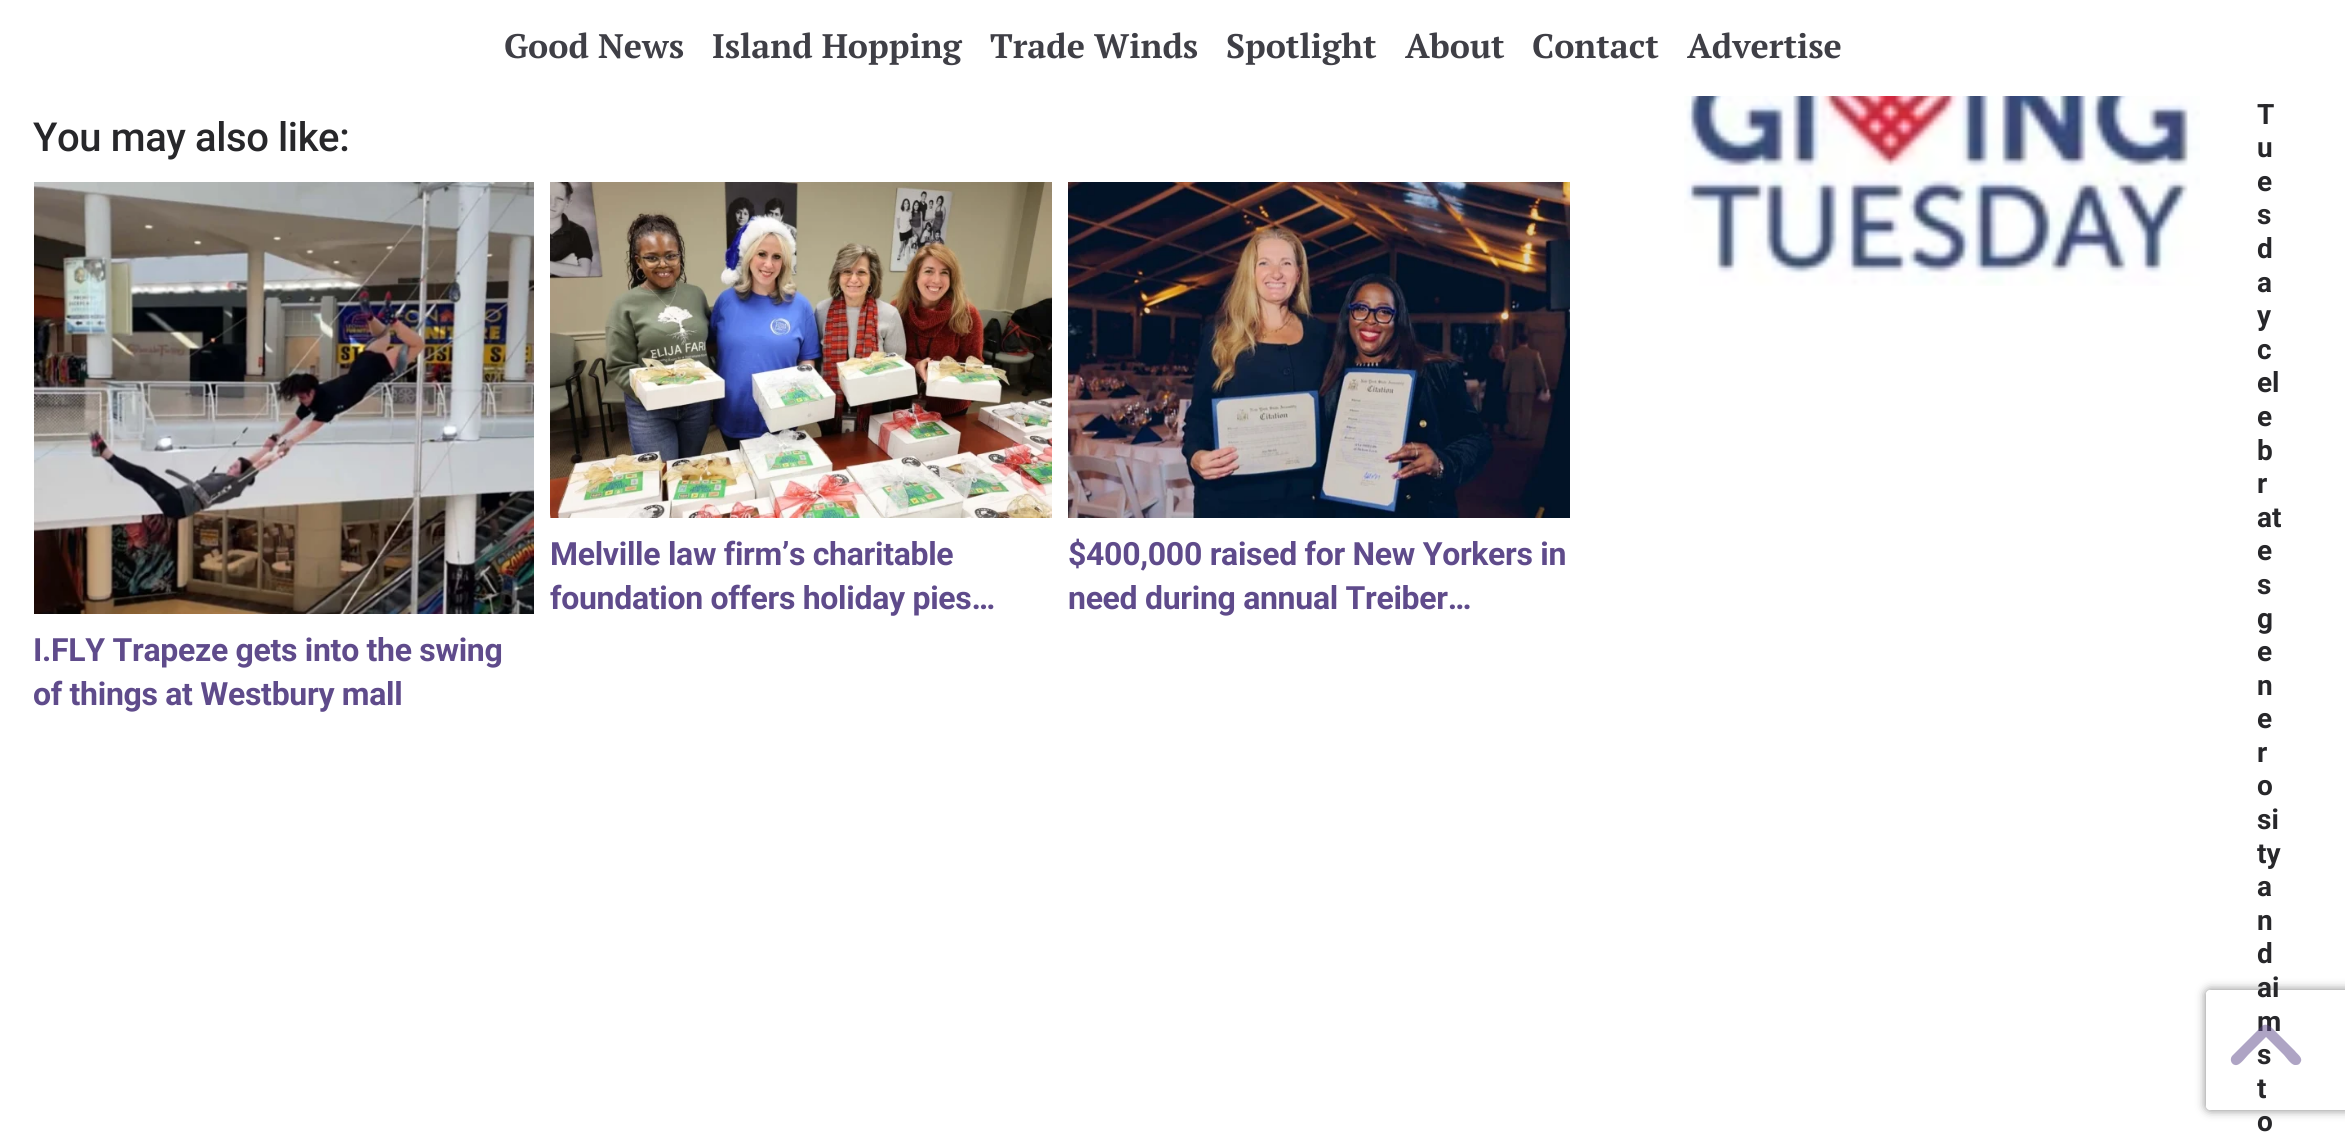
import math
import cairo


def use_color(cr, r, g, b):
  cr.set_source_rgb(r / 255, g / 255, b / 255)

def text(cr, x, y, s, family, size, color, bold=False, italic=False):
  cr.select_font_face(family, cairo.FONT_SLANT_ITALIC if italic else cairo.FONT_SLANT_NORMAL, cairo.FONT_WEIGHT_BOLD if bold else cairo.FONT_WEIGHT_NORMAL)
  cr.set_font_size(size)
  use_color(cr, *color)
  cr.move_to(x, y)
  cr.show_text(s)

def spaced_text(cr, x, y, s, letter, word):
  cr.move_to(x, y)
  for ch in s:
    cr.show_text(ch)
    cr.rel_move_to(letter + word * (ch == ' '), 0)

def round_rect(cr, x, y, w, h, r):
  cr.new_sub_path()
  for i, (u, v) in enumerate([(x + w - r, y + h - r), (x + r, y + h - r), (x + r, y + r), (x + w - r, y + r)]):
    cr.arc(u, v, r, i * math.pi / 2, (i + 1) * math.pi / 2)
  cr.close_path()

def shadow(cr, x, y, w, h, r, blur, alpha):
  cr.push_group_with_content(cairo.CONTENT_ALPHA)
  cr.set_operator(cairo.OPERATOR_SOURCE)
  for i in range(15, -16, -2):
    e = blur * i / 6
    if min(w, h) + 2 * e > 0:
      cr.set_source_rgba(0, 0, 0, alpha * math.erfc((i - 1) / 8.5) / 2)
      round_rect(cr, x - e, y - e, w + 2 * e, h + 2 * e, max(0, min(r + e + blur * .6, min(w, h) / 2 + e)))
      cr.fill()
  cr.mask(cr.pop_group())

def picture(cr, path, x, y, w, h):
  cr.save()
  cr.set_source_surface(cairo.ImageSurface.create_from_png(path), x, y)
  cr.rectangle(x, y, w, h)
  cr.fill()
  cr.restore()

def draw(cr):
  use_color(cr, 255, 255, 255)
  cr.paint()
  picture(cr, "img_01.png", 550, 182, 502, 336)
  picture(cr, "img_02.png", 1068, 182, 502, 336)
  picture(cr, "img_03.png", 34, 182, 500, 432)
  picture(cr, "img_04.png", 1684, 96, 516, 190)
  cr.save()
  cr.set_fill_rule(cairo.FILL_RULE_EVEN_ODD)
  cr.new_path()
  cr.move_to(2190, 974)
  cr.line_to(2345, 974)
  cr.line_to(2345, 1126)
  cr.line_to(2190, 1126)
  cr.close_path()
  cr.move_to(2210, 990)
  cr.line_to(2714, 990)
  cr.curve_to(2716, 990, 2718, 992, 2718, 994)
  cr.line_to(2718, 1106)
  cr.curve_to(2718, 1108, 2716, 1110, 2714, 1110)
  cr.line_to(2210, 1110)
  cr.curve_to(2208, 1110, 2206, 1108, 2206, 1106)
  cr.line_to(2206, 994)
  cr.curve_to(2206, 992, 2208, 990, 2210, 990)
  cr.close_path()
  cr.clip()
  use_color(cr, 128, 128, 128)
  shadow(cr, 2206, 990, 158, 120, 4, 5, 1)
  cr.restore()
  text(cr, 504, 58, "Good News", "PT Serif", 34, (63, 63, 70), bold=True)
  text(cr, 712, 58, "Island Hopping", "PT Serif", 34, (63, 63, 70), bold=True)
  text(cr, 990, 58, "Trade Winds", "PT Serif", 34, (63, 63, 70), bold=True)
  text(cr, 1226, 58, "Spotlight", "PT Serif", 34, (63, 63, 70), bold=True)
  text(cr, 1405, 58, "About", "PT Serif", 34, (63, 63, 70), bold=True)
  text(cr, 1532, 58, "Contact", "PT Serif", 34, (63, 63, 70), bold=True)
  text(cr, 1687, 58, "Advertise", "PT Serif", 34, (63, 63, 70), bold=True)
  cr.select_font_face("Roboto Medium")
  cr.set_font_size(40)
  use_color(cr, 39, 39, 42)
  spaced_text(cr, 33, 151, "You may also like:", -0.4, 0)
  cr.select_font_face("Roboto", cairo.FONT_SLANT_NORMAL, cairo.FONT_WEIGHT_BOLD)
  cr.set_font_size(32)
  use_color(cr, 95, 75, 139)
  spaced_text(cr, 550, 565, "Melville law firm’s charitable", -0.3, 0)
  spaced_text(cr, 550, 609, "foundation offers holiday pies…", -0.3, 0)
  spaced_text(cr, 1068, 565, "$400,000 raised for New Yorkers in", -0.3, 0)
  spaced_text(cr, 1068, 609, "need during annual Treiber…", -0.3, 0)
  spaced_text(cr, 33, 661, "I.FLY Trapeze gets into the swing", -0.3, 0)
  spaced_text(cr, 33, 705, "of things at Westbury mall", -0.3, 0)
  text(cr, 2257, 124, "T", "Roboto", 28, (39, 39, 42), bold=True)
  text(cr, 2257, 157, "u", "Roboto", 28, (39, 39, 42), bold=True)
  text(cr, 2257, 191, "e", "Roboto", 28, (39, 39, 42), bold=True)
  text(cr, 2257, 224, "s", "Roboto", 28, (39, 39, 42), bold=True)
  text(cr, 2257, 258, "d", "Roboto", 28, (39, 39, 42), bold=True)
  text(cr, 2257, 292, "a", "Roboto", 28, (39, 39, 42), bold=True)
  text(cr, 2257, 325, "y", "Roboto", 28, (39, 39, 42), bold=True)
  text(cr, 2257, 359, "c", "Roboto", 28, (39, 39, 42), bold=True)
  text(cr, 2257, 392, "el", "Roboto", 28, (39, 39, 42), bold=True)
  text(cr, 2257, 426, "e", "Roboto", 28, (39, 39, 42), bold=True)
  text(cr, 2257, 460, "b", "Roboto", 28, (39, 39, 42), bold=True)
  text(cr, 2257, 493, "r", "Roboto", 28, (39, 39, 42), bold=True)
  text(cr, 2257, 527, "at", "Roboto", 28, (39, 39, 42), bold=True)
  text(cr, 2257, 560, "e", "Roboto", 28, (39, 39, 42), bold=True)
  text(cr, 2257, 594, "s", "Roboto", 28, (39, 39, 42), bold=True)
  text(cr, 2257, 628, "g", "Roboto", 28, (39, 39, 42), bold=True)
  text(cr, 2257, 661, "e", "Roboto", 28, (39, 39, 42), bold=True)
  text(cr, 2257, 695, "n", "Roboto", 28, (39, 39, 42), bold=True)
  text(cr, 2257, 728, "e", "Roboto", 28, (39, 39, 42), bold=True)
  text(cr, 2257, 762, "r", "Roboto", 28, (39, 39, 42), bold=True)
  text(cr, 2257, 795, "o", "Roboto", 28, (39, 39, 42), bold=True)
  text(cr, 2257, 829, "si", "Roboto", 28, (39, 39, 42), bold=True)
  text(cr, 2257, 863, "ty", "Roboto", 28, (39, 39, 42), bold=True)
  text(cr, 2257, 896, "a", "Roboto", 28, (39, 39, 42), bold=True)
  text(cr, 2257, 930, "n", "Roboto", 28, (39, 39, 42), bold=True)
  text(cr, 2257, 963, "d", "Roboto", 28, (39, 39, 42), bold=True)
  text(cr, 2257, 997, "ai", "Roboto", 28, (39, 39, 42), bold=True)
  text(cr, 2257, 1031, "m", "Roboto", 28, (39, 39, 42), bold=True)
  text(cr, 2257, 1064, "s", "Roboto", 28, (39, 39, 42), bold=True)
  text(cr, 2257, 1098, "t", "Roboto", 28, (39, 39, 42), bold=True)
  text(cr, 2257, 1131, "o", "Roboto", 28, (39, 39, 42), bold=True)
  cr.set_source_rgba(0.373, 0.294, 0.545, 0.5)
  cr.new_path()
  cr.move_to(2262, 1026)
  cr.curve_to(2267, 1022, 2272, 1028, 2275, 1031)
  cr.line_to(2295, 1051)
  cr.curve_to(2297, 1054, 2304, 1058, 2300, 1063)
  cr.curve_to(2299, 1065, 2297, 1065, 2295, 1065)
  cr.curve_to(2291, 1065, 2286, 1057, 2284, 1055)
  cr.line_to(2266, 1037)
  cr.line_to(2248, 1055)
  cr.curve_to(2246, 1057, 2241, 1064, 2237, 1065)
  cr.curve_to(2232, 1066, 2229, 1060, 2232, 1056)
  cr.close_path()
  cr.fill()


surface = cairo.ImageSurface(cairo.FORMAT_RGB24, 2345, 1137)
cr = cairo.Context(surface)
options = cairo.FontOptions()
options.set_hint_metrics(cairo.HINT_METRICS_OFF)
options.set_hint_style(cairo.HINT_STYLE_NONE)
cr.set_font_options(options)
cr.set_miter_limit(4)
draw(cr)
surface.write_to_png("out.png")
